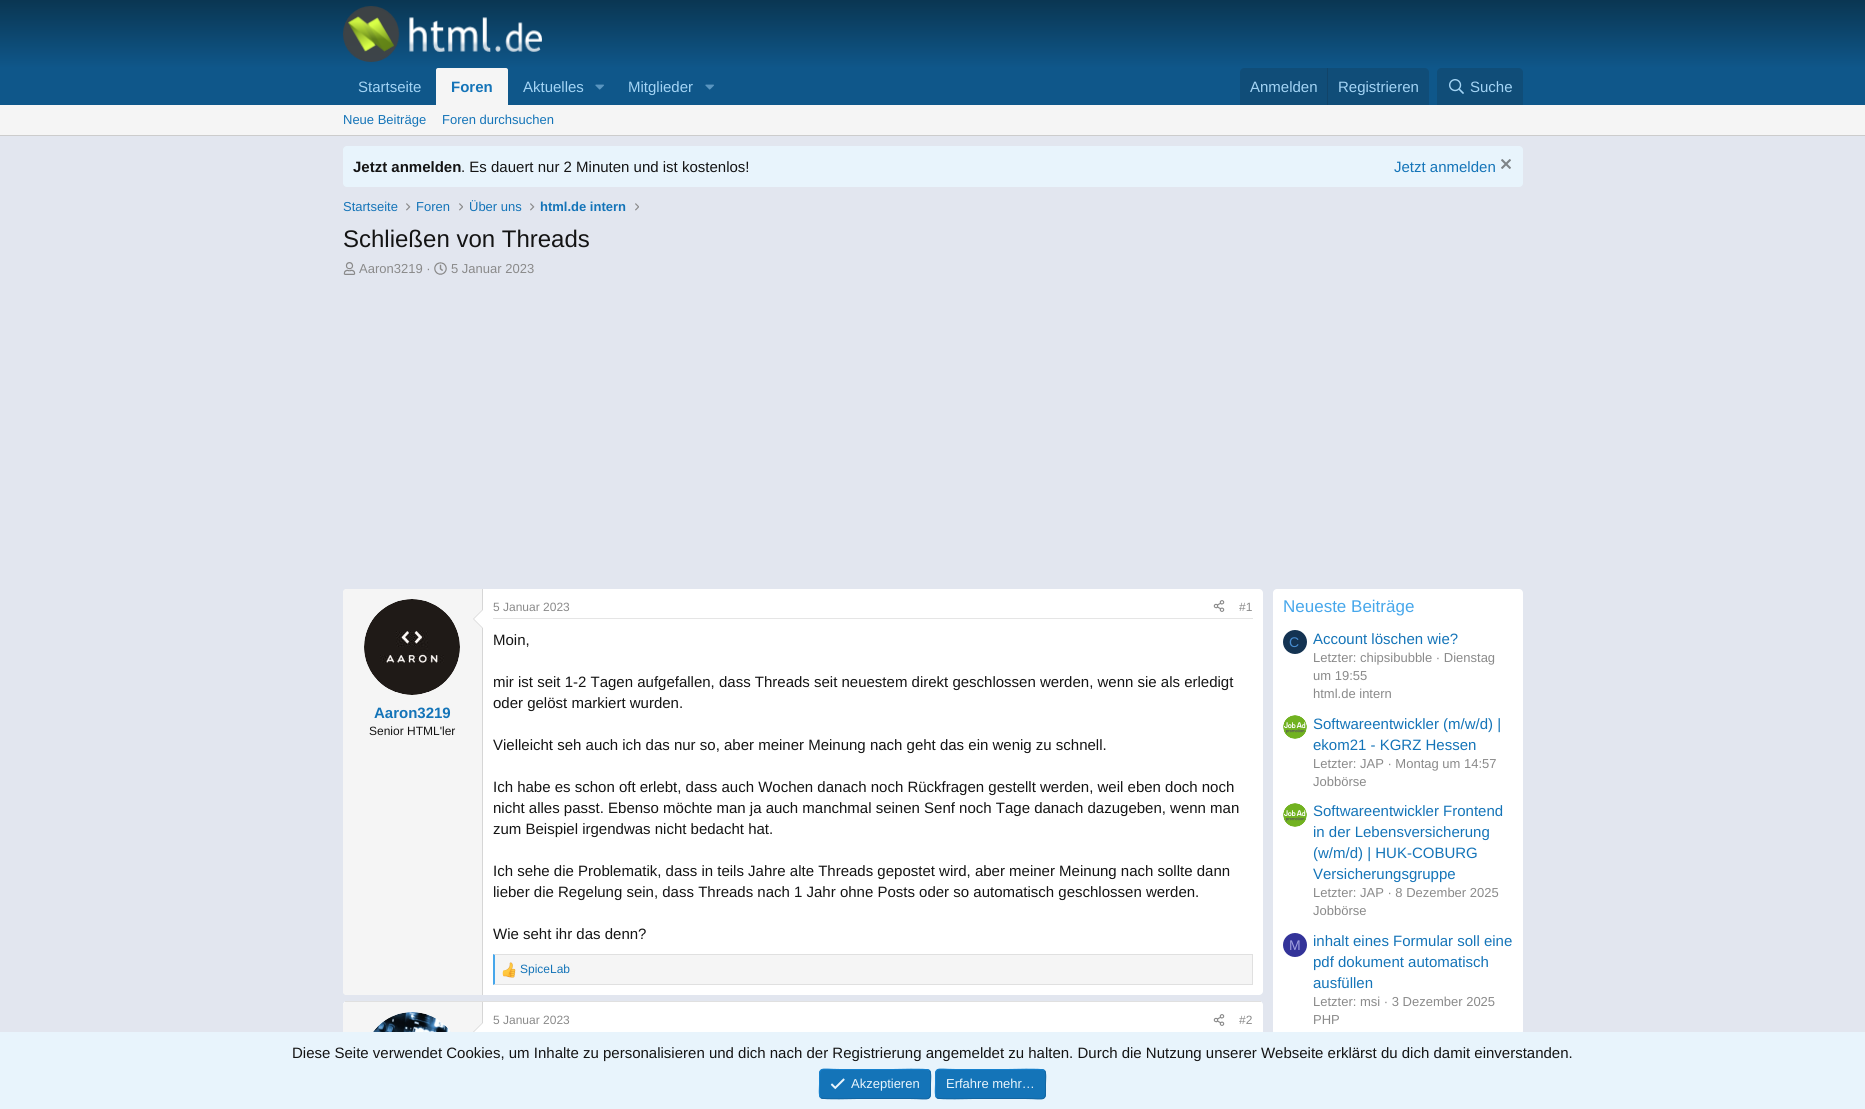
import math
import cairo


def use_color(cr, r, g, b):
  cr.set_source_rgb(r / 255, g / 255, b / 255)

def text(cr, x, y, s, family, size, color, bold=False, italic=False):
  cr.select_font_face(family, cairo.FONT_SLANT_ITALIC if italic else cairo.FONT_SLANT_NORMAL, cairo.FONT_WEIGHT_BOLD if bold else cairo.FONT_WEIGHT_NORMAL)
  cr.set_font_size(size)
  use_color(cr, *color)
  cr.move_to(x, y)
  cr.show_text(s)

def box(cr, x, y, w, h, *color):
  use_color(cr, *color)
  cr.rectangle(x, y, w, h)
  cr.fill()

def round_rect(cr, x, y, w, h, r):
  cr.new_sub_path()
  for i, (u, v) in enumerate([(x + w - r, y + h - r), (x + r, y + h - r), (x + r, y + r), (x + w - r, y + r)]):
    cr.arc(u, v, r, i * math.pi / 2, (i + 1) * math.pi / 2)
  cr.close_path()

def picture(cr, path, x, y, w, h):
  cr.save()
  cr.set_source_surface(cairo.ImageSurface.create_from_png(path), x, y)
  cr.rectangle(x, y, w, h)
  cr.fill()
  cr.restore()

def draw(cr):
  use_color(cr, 226, 230, 239)
  cr.paint()
  gradient = cairo.LinearGradient(933, 0, 933, 68)
  gradient.add_color_stop_rgba(0, 0.039, 0.212, 0.322, 1)
  gradient.add_color_stop_rgba(1, 0.059, 0.341, 0.541, 1)
  cr.set_source(gradient)
  cr.rectangle(0, 0, 1865, 68)
  cr.fill()
  picture(cr, "img_01.png", 343, 6, 199, 56)
  box(cr, 0, 68, 1865, 37, 15, 87, 138)
  use_color(cr, 245, 245, 245)
  cr.new_path()
  cr.move_to(438, 68)
  cr.line_to(506, 68)
  cr.curve_to(507, 68, 508, 69, 508, 70)
  cr.line_to(508, 105)
  cr.line_to(436, 105)
  cr.line_to(436, 70)
  cr.curve_to(436, 69, 437, 68, 438, 68)
  cr.close_path()
  cr.fill()
  picture(cr, "img_02.png", 595, 84, 9, 6)
  picture(cr, "img_02.png", 705, 84, 9, 6)
  use_color(cr, 16, 77, 120)
  cr.new_path()
  cr.move_to(1244, 68)
  cr.line_to(1425, 68)
  cr.curve_to(1427, 68, 1429, 70, 1429, 72)
  cr.line_to(1429, 105)
  cr.line_to(1240, 105)
  cr.line_to(1240, 72)
  cr.curve_to(1240, 70, 1242, 68, 1244, 68)
  cr.close_path()
  cr.fill()
  box(cr, 1327, 68, 1, 37, 17, 68, 105)
  use_color(cr, 16, 77, 120)
  cr.new_path()
  cr.move_to(1441, 68)
  cr.line_to(1519, 68)
  cr.curve_to(1521, 68, 1523, 70, 1523, 72)
  cr.line_to(1523, 105)
  cr.line_to(1437, 105)
  cr.line_to(1437, 72)
  cr.curve_to(1437, 70, 1439, 68, 1441, 68)
  cr.close_path()
  cr.fill()
  picture(cr, "img_03.png", 1449, 79, 15, 15)
  box(cr, 0, 105, 1865, 30, 245, 245, 245)
  box(cr, 0, 135, 1865, 1, 204, 204, 204)
  use_color(cr, 232, 244, 252)
  round_rect(cr, 343, 146, 1180, 41, 4)
  cr.fill()
  picture(cr, "img_04.png", 1501, 159, 10, 10)
  picture(cr, "img_05.png", 406, 203, 5, 8)
  picture(cr, "img_06.png", 459, 203, 4, 8)
  picture(cr, "img_05.png", 530, 203, 5, 8)
  picture(cr, "img_06.png", 635, 203, 4, 8)
  picture(cr, "img_07.png", 343, 262, 13, 13)
  picture(cr, "img_08.png", 434, 262, 13, 13)
  use_color(cr, 255, 255, 255)
  round_rect(cr, 343, 589, 920, 406, 4)
  cr.fill()
  use_color(cr, 245, 245, 245)
  cr.new_path()
  cr.move_to(346, 589)
  cr.line_to(483, 589)
  cr.line_to(483, 995)
  cr.line_to(346, 995)
  cr.curve_to(344.5, 995, 343, 993.5, 343, 992)
  cr.line_to(343, 592)
  cr.curve_to(343, 590.5, 344.5, 589, 346, 589)
  cr.close_path()
  cr.fill()
  box(cr, 482, 589, 1, 406, 214, 214, 214)
  use_color(cr, 255, 255, 255)
  cr.arc(412, 647, 48, 0, 2 * math.pi)
  cr.fill()
  picture(cr, "img_09.png", 364, 599, 96, 96)
  use_color(cr, 214, 214, 214)
  cr.new_path()
  cr.move_to(483, 609)
  cr.line_to(483, 629)
  cr.line_to(473, 619)
  cr.close_path()
  cr.fill()
  use_color(cr, 255, 255, 255)
  cr.new_path()
  cr.move_to(483, 610)
  cr.line_to(483, 628)
  cr.line_to(474, 619)
  cr.close_path()
  cr.fill()
  box(cr, 493, 618, 760, 1, 229, 229, 229)
  picture(cr, "img_10.png", 1213, 600, 12, 12)
  box(cr, 495, 955, 757, 29, 245, 245, 245)
  use_color(cr, 224, 224, 224)
  cr.new_path()
  cr.move_to(493, 954)
  cr.line_to(1253, 954)
  cr.line_to(1252, 955)
  cr.line_to(495, 955)
  cr.close_path()
  cr.fill()
  box(cr, 1252, 954, 1, 31, 224, 224, 224)
  cr.new_path()
  cr.move_to(1253, 985)
  cr.line_to(493, 985)
  cr.line_to(495, 984)
  cr.line_to(1252, 984)
  cr.close_path()
  cr.fill()
  use_color(cr, 71, 167, 235)
  cr.new_path()
  cr.move_to(493, 985)
  cr.line_to(493, 954)
  cr.line_to(495, 955)
  cr.line_to(495, 984)
  cr.close_path()
  cr.fill()
  picture(cr, "img_11.png", 502, 962, 14, 16)
  use_color(cr, 255, 255, 255)
  round_rect(cr, 343, 1001, 920, 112, 4)
  cr.fill()
  box(cr, 345, 1001, 916, 1, 224, 224, 224)
  use_color(cr, 245, 245, 245)
  cr.new_path()
  cr.move_to(346, 1002)
  cr.line_to(483, 1002)
  cr.line_to(483, 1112)
  cr.line_to(346, 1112)
  cr.curve_to(344.5, 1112, 343, 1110.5, 343, 1109)
  cr.line_to(343, 1005)
  cr.curve_to(343, 1003.5, 344.5, 1002, 346, 1002)
  cr.close_path()
  cr.fill()
  box(cr, 482, 1002, 1, 21, 214, 214, 214)
  use_color(cr, 255, 255, 255)
  cr.arc(412, 1060, 48, 0, 2 * math.pi)
  cr.fill()
  picture(cr, "img_12.png", 373, 1012, 78, 20)
  use_color(cr, 214, 214, 214)
  cr.new_path()
  cr.move_to(483, 1022)
  cr.line_to(483, 1042)
  cr.line_to(473, 1032)
  cr.close_path()
  cr.fill()
  use_color(cr, 255, 255, 255)
  cr.new_path()
  cr.move_to(483, 1023)
  cr.line_to(483, 1041)
  cr.line_to(474, 1032)
  cr.close_path()
  cr.fill()
  picture(cr, "img_13.png", 1213, 1014, 12, 12)
  round_rect(cr, 1273, 589, 250, 446, 4)
  cr.fill()
  use_color(cr, 20, 51, 82)
  cr.arc(1295, 642, 12, 0, 2 * math.pi)
  cr.fill()
  picture(cr, "img_14.png", 1283, 715, 24, 24)
  picture(cr, "img_14.png", 1283, 803, 24, 24)
  use_color(cr, 51, 51, 153)
  cr.arc(1295, 945, 12, 0, 2 * math.pi)
  cr.fill()
  box(cr, 0, 1032, 1865, 77, 232, 244, 252)
  use_color(cr, 20, 116, 184)
  round_rect(cr, 819, 1069, 112, 30, 4)
  cr.fill()
  cr.new_path()
  cr.move_to(929.5, 1070.5)
  cr.curve_to(931.5, 1072.5, 930.5, 1081, 930.5, 1084)
  cr.curve_to(930.5, 1103, 932, 1098.5, 909.5, 1098.5)
  cr.line_to(857.5, 1098.5)
  cr.curve_to(854, 1098.5, 824, 1099.5, 821.5, 1098)
  cr.line_to(820.5, 1097.5)
  use_color(cr, 18, 101, 161)
  cr.set_line_width(1)
  cr.stroke()
  cr.new_path()
  cr.move_to(820.5, 1097.5)
  cr.curve_to(818.5, 1095.5, 819.5, 1087, 819.5, 1084)
  cr.curve_to(819.5, 1065, 818, 1069.5, 840.5, 1069.5)
  cr.line_to(892.5, 1069.5)
  cr.curve_to(896, 1069.5, 926, 1068.5, 928.5, 1070)
  cr.line_to(929.5, 1070.5)
  use_color(cr, 23, 130, 207)
  cr.stroke()
  picture(cr, "img_15.png", 830, 1078, 15, 12)
  use_color(cr, 20, 116, 184)
  round_rect(cr, 935, 1069, 111, 30, 4)
  cr.fill()
  cr.new_path()
  cr.move_to(1044.5, 1070.5)
  cr.curve_to(1046.5, 1072.5, 1045.5, 1081, 1045.5, 1084)
  cr.curve_to(1045.5, 1103, 1047, 1098.5, 1025, 1098.5)
  cr.line_to(973.5, 1098.5)
  cr.curve_to(969.5, 1098.5, 940, 1099.5, 937.5, 1098)
  cr.line_to(936.5, 1097.5)
  use_color(cr, 18, 101, 161)
  cr.stroke()
  cr.new_path()
  cr.move_to(936.5, 1097.5)
  cr.curve_to(934.5, 1095.5, 935.5, 1087, 935.5, 1084)
  cr.curve_to(935.5, 1065, 934, 1069.5, 956, 1069.5)
  cr.line_to(1007.5, 1069.5)
  cr.curve_to(1011.5, 1069.5, 1041, 1068.5, 1043.5, 1070)
  cr.line_to(1044.5, 1070.5)
  use_color(cr, 23, 130, 207)
  cr.stroke()
  text(cr, 358, 92, "Startseite", "Liberation Sans", 15, (163, 212, 245))
  text(cr, 451, 92, "Foren", "Liberation Sans", 15, (20, 116, 184), bold=True)
  text(cr, 523, 92, "Aktuelles", "Liberation Sans", 15, (163, 212, 245))
  text(cr, 628, 92, "Mitglieder", "Liberation Sans", 15, (163, 212, 245))
  text(cr, 1250, 92, "Anmelden", "Liberation Sans", 15, (163, 212, 245))
  text(cr, 1338, 92, "Registrieren", "Liberation Sans", 15, (163, 212, 245))
  text(cr, 1470, 92, "Suche", "Liberation Sans", 15, (163, 212, 245))
  text(cr, 343, 124, "Neue Beiträge", "Liberation Sans", 13, (20, 116, 184))
  text(cr, 442, 124, "Foren durchsuchen", "Liberation Sans", 13, (20, 116, 184))
  text(cr, 353, 172, "Jetzt anmelden", "Liberation Sans", 15, (20, 20, 20), bold=True)
  text(cr, 461, 172, ". Es dauert nur 2 Minuten und ist kostenlos!", "Liberation Sans", 15, (20, 20, 20))
  text(cr, 1394, 172, "Jetzt anmelden", "Liberation Sans", 15, (20, 116, 184))
  text(cr, 343, 211, "Startseite", "Liberation Sans", 13, (20, 116, 184))
  text(cr, 416, 211, "Foren", "Liberation Sans", 13, (20, 116, 184))
  text(cr, 469, 211, "Über uns", "Liberation Sans", 13, (20, 116, 184))
  text(cr, 540, 211, "html.de intern", "Liberation Sans", 13, (20, 116, 184), bold=True)
  text(cr, 343, 247, "Schließen von Threads", "Liberation Sans", 24, (20, 20, 20))
  text(cr, 359, 273, "Aaron3219 ·", "Liberation Sans", 13, (138, 138, 138))
  text(cr, 451, 273, "5 Januar 2023", "Liberation Sans", 13, (138, 138, 138))
  text(cr, 374, 718, "Aaron3219", "Liberation Sans", 15, (20, 116, 184), bold=True)
  text(cr, 369, 735, "Senior HTML'ler", "Liberation Sans", 12, (20, 20, 20))
  text(cr, 493, 611, "5 Januar 2023", "Liberation Sans", 12, (138, 138, 138))
  text(cr, 1239, 611, "#1", "Liberation Sans", 12, (138, 138, 138))
  text(cr, 493, 645, "Moin,", "Liberation Sans", 15, (20, 20, 20))
  text(cr, 493, 687, "mir ist seit 1-2 Tagen aufgefallen, dass Threads seit neuestem direkt geschlossen werden, wenn sie als erledigt", "Liberation Sans", 15, (20, 20, 20))
  text(cr, 493, 708, "oder gelöst markiert wurden.", "Liberation Sans", 15, (20, 20, 20))
  text(cr, 493, 750, "Vielleicht seh auch ich das nur so, aber meiner Meinung nach geht das ein wenig zu schnell.", "Liberation Sans", 15, (20, 20, 20))
  text(cr, 493, 792, "Ich habe es schon oft erlebt, dass auch Wochen danach noch Rückfragen gestellt werden, weil eben doch noch", "Liberation Sans", 15, (20, 20, 20))
  text(cr, 493, 813, "nicht alles passt. Ebenso möchte man ja auch manchmal seinen Senf noch Tage danach dazugeben, wenn man", "Liberation Sans", 15, (20, 20, 20))
  text(cr, 493, 834, "zum Beispiel irgendwas nicht bedacht hat.", "Liberation Sans", 15, (20, 20, 20))
  text(cr, 493, 876, "Ich sehe die Problematik, dass in teils Jahre alte Threads gepostet wird, aber meiner Meinung nach sollte dann", "Liberation Sans", 15, (20, 20, 20))
  text(cr, 493, 897, "lieber die Regelung sein, dass Threads nach 1 Jahr ohne Posts oder so automatisch geschlossen werden.", "Liberation Sans", 15, (20, 20, 20))
  text(cr, 493, 939, "Wie seht ihr das denn?", "Liberation Sans", 15, (20, 20, 20))
  text(cr, 520, 973, "SpiceLab", "Liberation Sans", 12, (20, 116, 184))
  text(cr, 493, 1024, "5 Januar 2023", "Liberation Sans", 12, (138, 138, 138))
  text(cr, 1239, 1024, "#2", "Liberation Sans", 12, (138, 138, 138))
  text(cr, 1283, 612, "Neueste Beiträge", "Liberation Sans", 17, (71, 167, 235))
  text(cr, 1289, 647, "C", "Liberation Sans", 14, (71, 140, 209))
  text(cr, 1313, 644, "Account löschen wie?", "Liberation Sans", 15, (20, 116, 184))
  text(cr, 1313, 662, "Letzter: chipsibubble · Dienstag", "Liberation Sans", 13, (138, 138, 138))
  text(cr, 1313, 680, "um 19:55", "Liberation Sans", 13, (138, 138, 138))
  text(cr, 1313, 698, "html.de intern", "Liberation Sans", 13, (138, 138, 138))
  text(cr, 1313, 729, "Softwareentwickler (m/w/d) |", "Liberation Sans", 15, (20, 116, 184))
  text(cr, 1313, 750, "ekom21 - KGRZ Hessen", "Liberation Sans", 15, (20, 116, 184))
  text(cr, 1313, 768, "Letzter: JAP · Montag um 14:57", "Liberation Sans", 13, (138, 138, 138))
  text(cr, 1313, 786, "Jobbörse", "Liberation Sans", 13, (138, 138, 138))
  text(cr, 1313, 816, "Softwareentwickler Frontend", "Liberation Sans", 15, (20, 116, 184))
  text(cr, 1313, 837, "in der Lebensversicherung", "Liberation Sans", 15, (20, 116, 184))
  text(cr, 1313, 858, "(w/m/d) | HUK-COBURG", "Liberation Sans", 15, (20, 116, 184))
  text(cr, 1313, 879, "Versicherungsgruppe", "Liberation Sans", 15, (20, 116, 184))
  text(cr, 1313, 897, "Letzter: JAP · 8 Dezember 2025", "Liberation Sans", 13, (138, 138, 138))
  text(cr, 1313, 915, "Jobbörse", "Liberation Sans", 13, (138, 138, 138))
  text(cr, 1289, 950, "M", "Liberation Sans", 14, (159, 159, 223))
  text(cr, 1313, 946, "inhalt eines Formular soll eine", "Liberation Sans", 15, (20, 116, 184))
  text(cr, 1313, 967, "pdf dokument automatisch", "Liberation Sans", 15, (20, 116, 184))
  text(cr, 1313, 988, "ausfüllen", "Liberation Sans", 15, (20, 116, 184))
  text(cr, 1313, 1006, "Letzter: msi · 3 Dezember 2025", "Liberation Sans", 13, (138, 138, 138))
  text(cr, 1313, 1024, "PHP", "Liberation Sans", 13, (138, 138, 138))
  text(cr, 292, 1058, "Diese Seite verwendet Cookies, um Inhalte zu personalisieren und dich nach der Registrierung angemeldet zu halten. Durch die Nutzung unserer Webseite erklärst du dich damit einverstanden.", "Liberation Sans", 15, (20, 20, 20))
  text(cr, 851, 1088, "Akzeptieren", "Liberation Sans", 13, (232, 244, 252))
  text(cr, 946, 1088, "Erfahre mehr…", "Liberation Sans", 13, (232, 244, 252))


surface = cairo.ImageSurface(cairo.FORMAT_RGB24, 1865, 1109)
cr = cairo.Context(surface)
options = cairo.FontOptions()
options.set_hint_metrics(cairo.HINT_METRICS_OFF)
options.set_hint_style(cairo.HINT_STYLE_NONE)
cr.set_font_options(options)
cr.set_miter_limit(4)
draw(cr)
surface.write_to_png("out.png")
